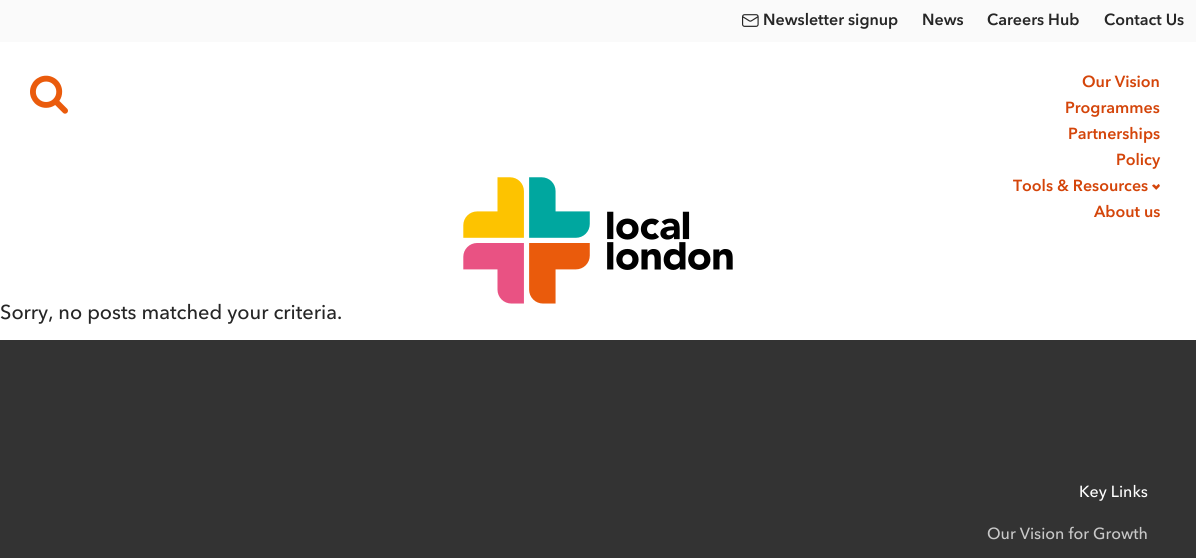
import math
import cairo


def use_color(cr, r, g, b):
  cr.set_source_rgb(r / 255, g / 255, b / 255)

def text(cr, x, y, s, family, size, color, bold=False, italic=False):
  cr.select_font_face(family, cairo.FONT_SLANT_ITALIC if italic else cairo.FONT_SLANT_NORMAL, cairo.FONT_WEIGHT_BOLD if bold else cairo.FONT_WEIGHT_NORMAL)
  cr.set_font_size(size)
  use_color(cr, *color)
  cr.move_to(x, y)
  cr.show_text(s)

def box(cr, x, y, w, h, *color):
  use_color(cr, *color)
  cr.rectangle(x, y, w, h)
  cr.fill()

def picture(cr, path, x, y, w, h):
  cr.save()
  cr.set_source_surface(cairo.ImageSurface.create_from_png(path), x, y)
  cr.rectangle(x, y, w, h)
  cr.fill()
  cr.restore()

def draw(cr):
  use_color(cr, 255, 255, 255)
  cr.paint()
  box(cr, 0, 0, 1196, 42, 250, 250, 250)
  picture(cr, "img_01.png", 742, 14, 17, 13)
  picture(cr, "img_02.png", 30, 75, 38, 39)
  picture(cr, "img_03.png", 1152, 184, 8, 6)
  picture(cr, "img_04.png", 463, 177, 270, 127)
  box(cr, 0, 340, 1196, 218, 51, 51, 51)
  text(cr, 763, 25, "Newsletter signup", "Avenir Next SemiBold", 16, (38, 38, 38))
  text(cr, 922, 25, "News", "Avenir Next SemiBold", 16, (38, 38, 38))
  text(cr, 987, 25, "Careers Hub", "Avenir Next SemiBold", 16, (38, 38, 38))
  text(cr, 1104, 25, "Contact Us", "Avenir Next SemiBold", 16, (38, 38, 38))
  text(cr, 1082, 87, "Our Vision", "Avenir Next SemiBold", 16, (212, 69, 10))
  text(cr, 1065, 113, "Programmes", "Avenir Next SemiBold", 16, (212, 69, 10))
  text(cr, 1068, 139, "Partnerships", "Avenir Next SemiBold", 16, (212, 69, 10))
  text(cr, 1116, 165, "Policy", "Avenir Next SemiBold", 16, (212, 69, 10))
  text(cr, 1013, 191, "Tools & Resources", "Avenir Next SemiBold", 16, (212, 69, 10))
  text(cr, 1094, 217, "About us", "Avenir Next SemiBold", 16, (212, 69, 10))
  text(cr, 0, 319, "Sorry, no posts matched your criteria.", "Avenir Next Medium", 20, (38, 38, 38))
  text(cr, 1079, 497, "Key Links", "Avenir Next Medium", 16, (255, 255, 255))
  text(cr, 987, 539, "Our Vision for Growth", "Avenir Next Medium", 16, (200, 200, 200))


surface = cairo.ImageSurface(cairo.FORMAT_RGB24, 1196, 558)
cr = cairo.Context(surface)
options = cairo.FontOptions()
options.set_hint_metrics(cairo.HINT_METRICS_OFF)
options.set_hint_style(cairo.HINT_STYLE_NONE)
cr.set_font_options(options)
cr.set_miter_limit(4)
draw(cr)
surface.write_to_png("out.png")
